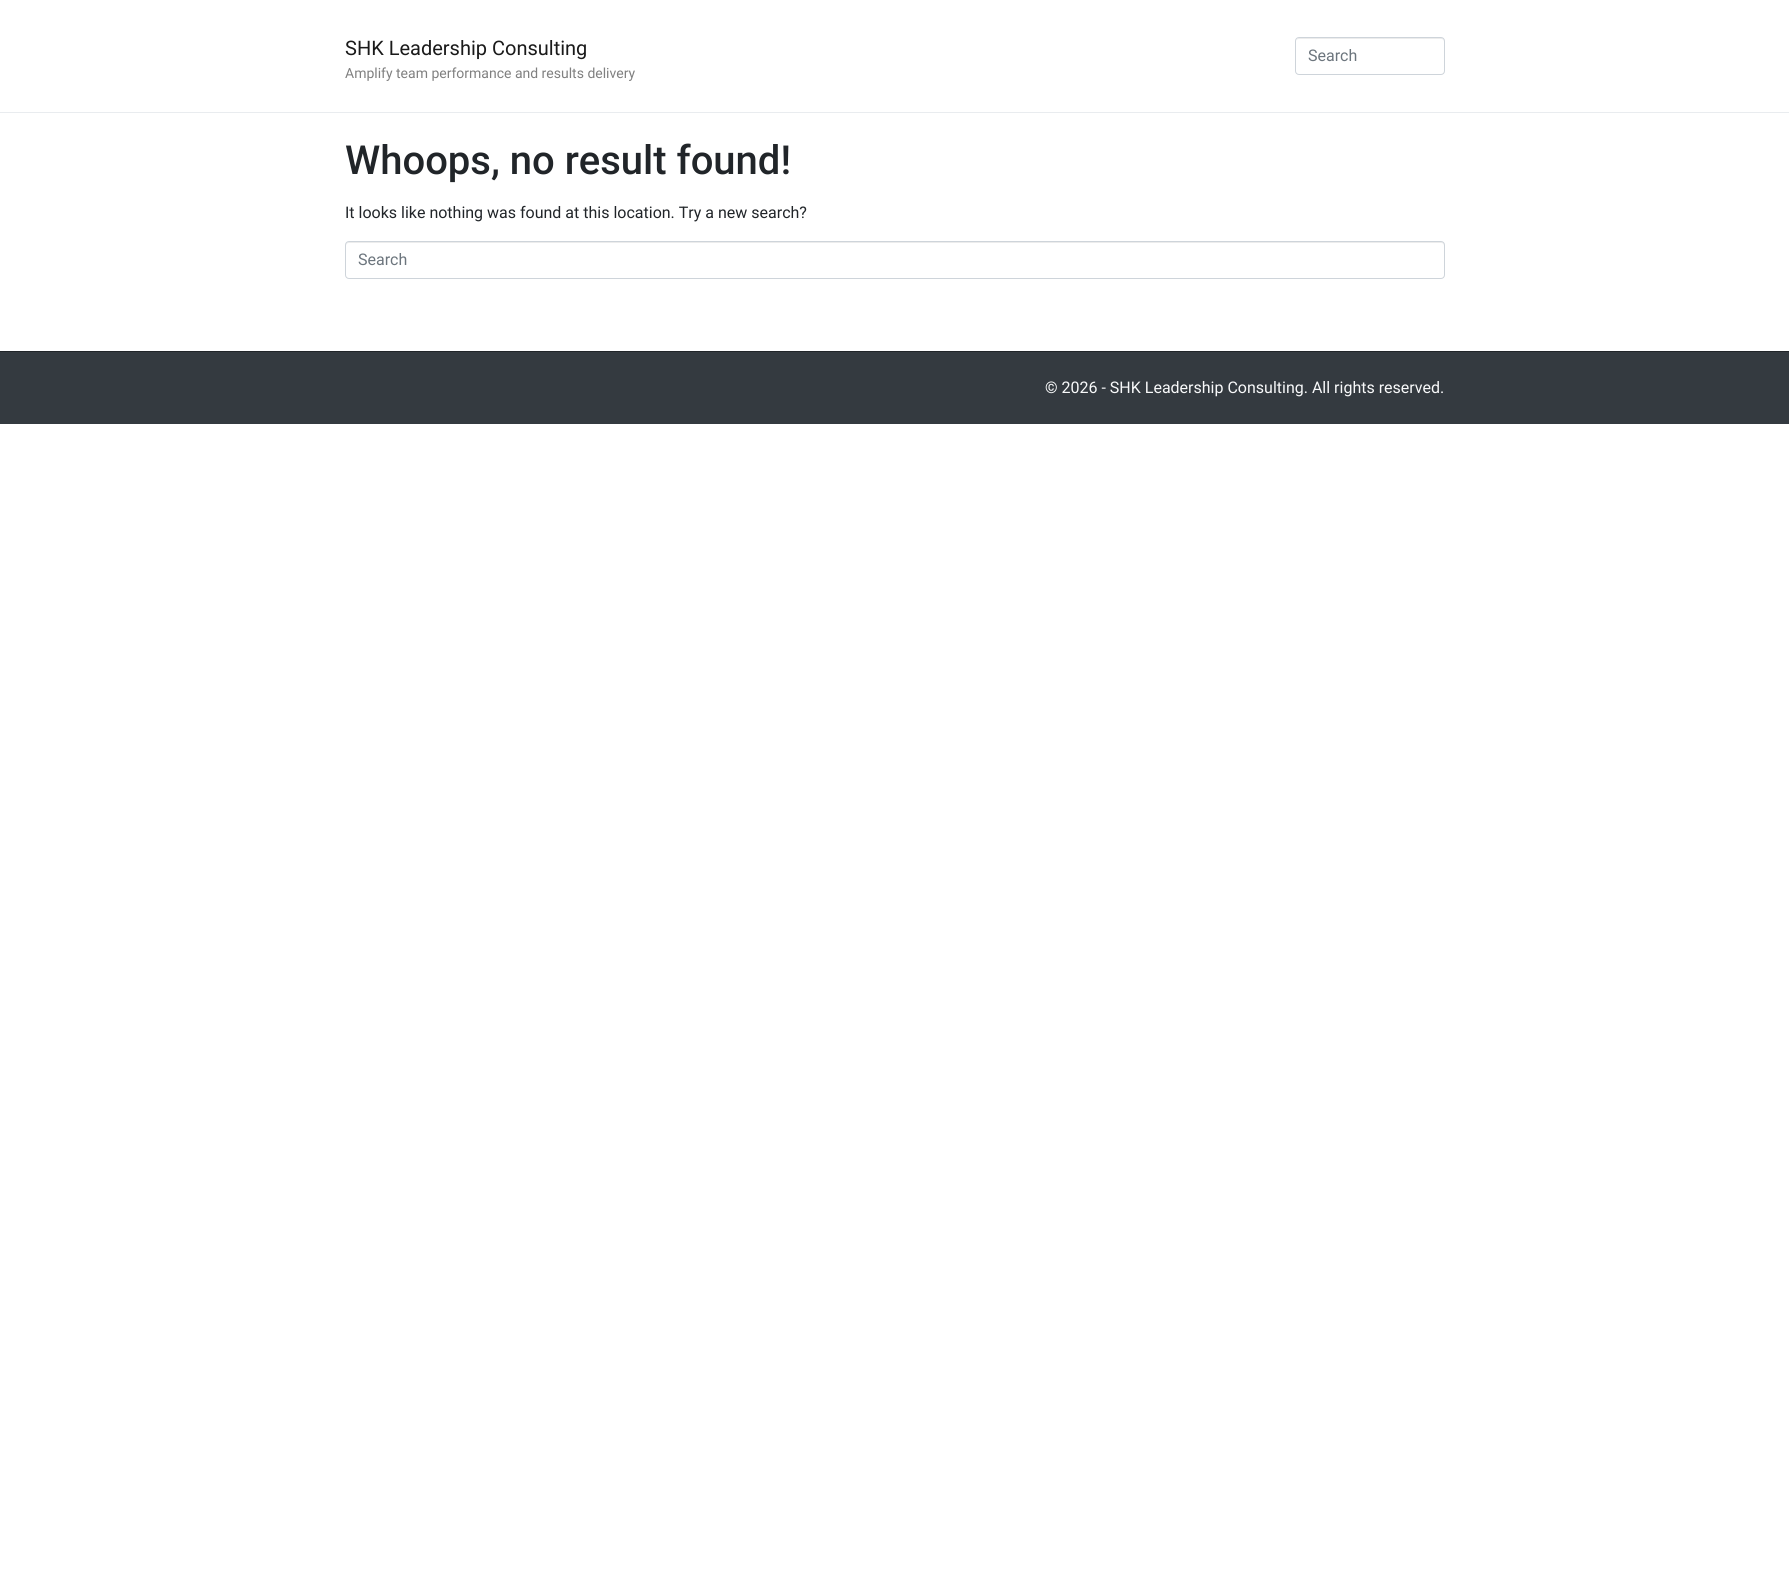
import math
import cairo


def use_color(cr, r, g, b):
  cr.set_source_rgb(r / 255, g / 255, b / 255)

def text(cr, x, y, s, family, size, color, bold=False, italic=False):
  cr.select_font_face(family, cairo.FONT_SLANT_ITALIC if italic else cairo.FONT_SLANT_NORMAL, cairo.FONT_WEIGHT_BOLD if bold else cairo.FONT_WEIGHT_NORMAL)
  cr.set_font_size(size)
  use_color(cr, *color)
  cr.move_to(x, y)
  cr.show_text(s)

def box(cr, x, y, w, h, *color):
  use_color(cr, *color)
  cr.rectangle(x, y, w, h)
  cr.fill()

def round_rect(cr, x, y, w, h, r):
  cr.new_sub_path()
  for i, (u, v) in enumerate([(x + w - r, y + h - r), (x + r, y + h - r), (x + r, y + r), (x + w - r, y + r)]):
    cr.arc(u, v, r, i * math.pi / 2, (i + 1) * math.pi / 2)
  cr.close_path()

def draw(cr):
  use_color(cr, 255, 255, 255)
  cr.paint()
  box(cr, 0, 112, 1789, 1, 233, 236, 239)
  cr.save()
  cr.rectangle(1295, 37, 150, 38)
  cr.clip()
  use_color(cr, 236, 236, 236)
  cr.new_path()
  cr.move_to(1299, 39)
  cr.line_to(1441, 39)
  cr.curve_to(1443, 39, 1444, 40, 1444, 42)
  cr.curve_to(1444, 40, 1444, 39, 1442, 38)
  cr.line_to(1323, 38)
  cr.curve_to(1315, 38, 1296, 33, 1296, 42)
  cr.curve_to(1296, 40, 1297, 39, 1299, 39)
  cr.close_path()
  cr.fill()
  cr.restore()
  round_rect(cr, 1295.5, 37.5, 149, 37, 3.5)
  use_color(cr, 206, 212, 218)
  cr.set_line_width(1)
  cr.stroke()
  use_color(cr, 236, 236, 236)
  cr.new_path()
  cr.move_to(349, 243)
  cr.line_to(1441, 243)
  cr.curve_to(1443, 243, 1444, 244, 1444, 246)
  cr.line_to(1444, 245)
  cr.curve_to(1444, 243, 1443, 242, 1441, 242)
  cr.line_to(349, 242)
  cr.curve_to(347, 242, 346, 243, 346, 245)
  cr.line_to(346, 246)
  cr.curve_to(346, 244, 347, 243, 349, 243)
  cr.close_path()
  cr.fill()
  round_rect(cr, 345.5, 241.5, 1099, 37, 3.5)
  use_color(cr, 206, 212, 218)
  cr.stroke()
  box(cr, 0, 352, 1789, 72, 52, 58, 64)
  box(cr, 0, 351, 1789, 1, 33, 37, 41)
  text(cr, 345, 55, "SHK Leadership Consulting", "Roboto", 20, (26, 26, 26))
  text(cr, 345, 78, "Amplify team performance and results delivery", "Roboto", 14, (128, 128, 128))
  text(cr, 1308, 61, "Search", "Roboto", 16, (108, 117, 125))
  text(cr, 345, 174, "Whoops, no result found!", "Roboto Medium", 40, (33, 37, 41))
  text(cr, 345, 218, "It looks like nothing was found at this location. Try a new search?", "Roboto", 16, (33, 37, 41))
  text(cr, 358, 265, "Search", "Roboto", 16, (108, 117, 125))
  text(cr, 1045, 393, "© 2026 - SHK Leadership Consulting. All rights reserved.", "Roboto", 16, (248, 249, 250))


surface = cairo.ImageSurface(cairo.FORMAT_RGB24, 1789, 1588)
cr = cairo.Context(surface)
options = cairo.FontOptions()
options.set_hint_metrics(cairo.HINT_METRICS_OFF)
options.set_hint_style(cairo.HINT_STYLE_NONE)
cr.set_font_options(options)
cr.set_miter_limit(4)
draw(cr)
surface.write_to_png("out.png")
